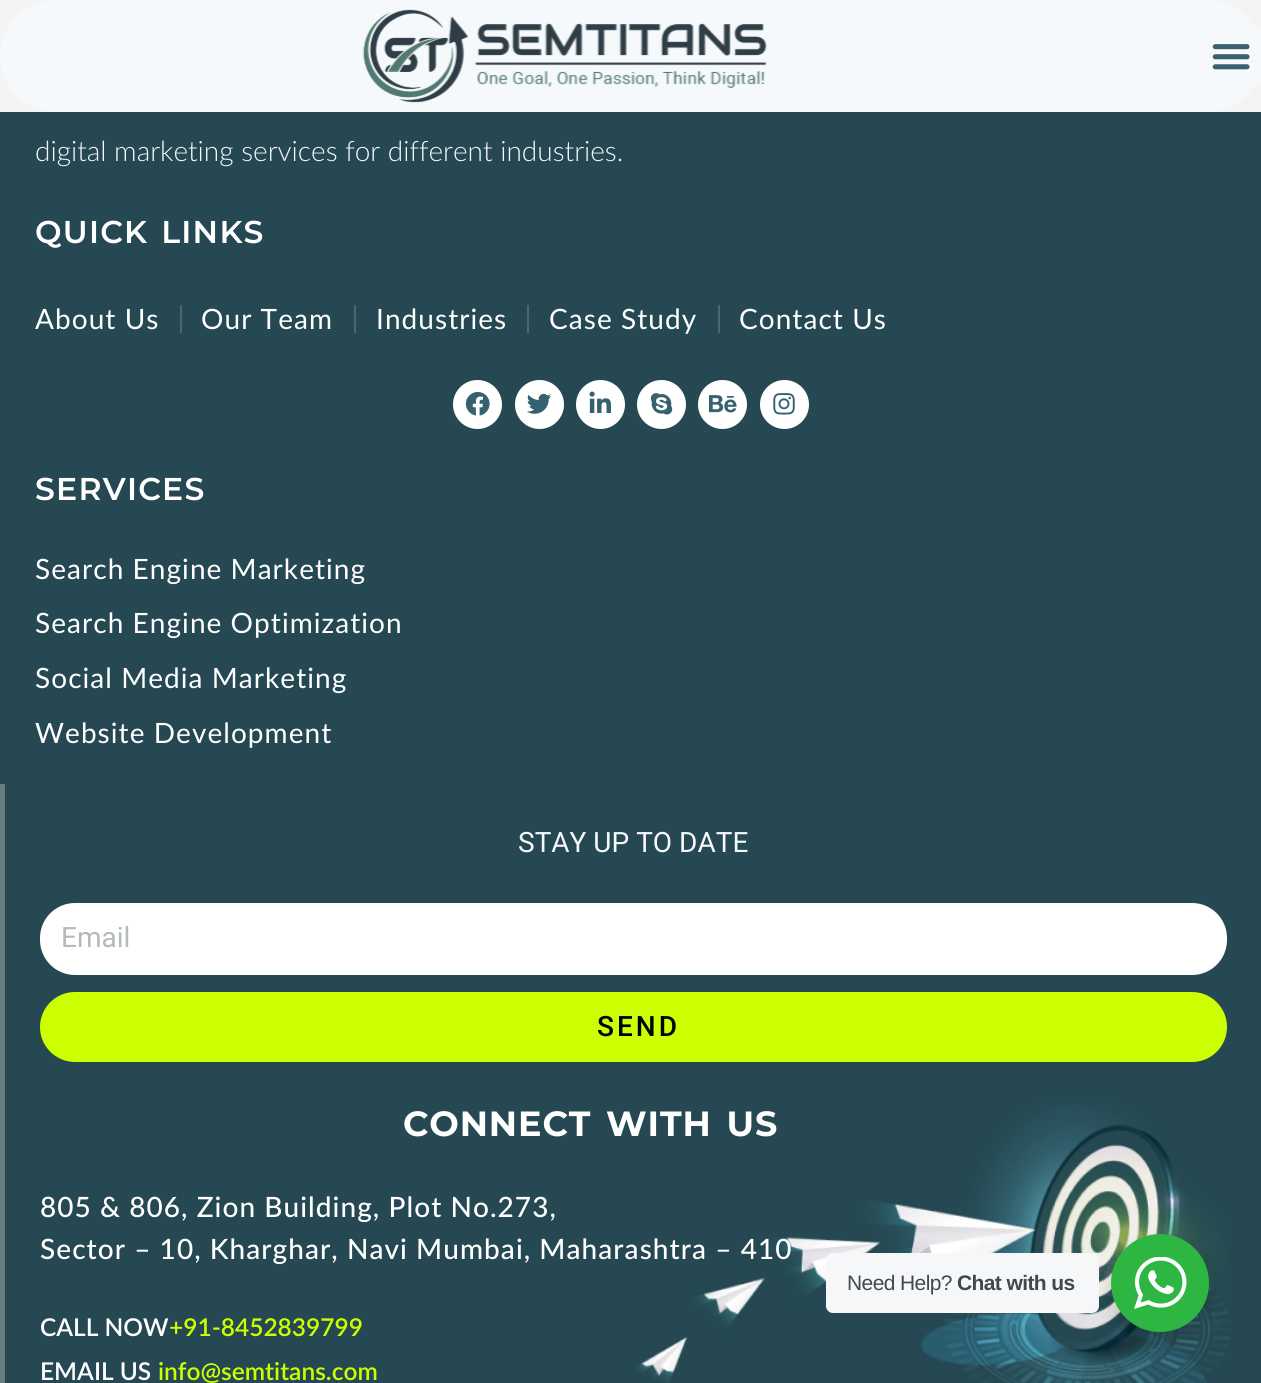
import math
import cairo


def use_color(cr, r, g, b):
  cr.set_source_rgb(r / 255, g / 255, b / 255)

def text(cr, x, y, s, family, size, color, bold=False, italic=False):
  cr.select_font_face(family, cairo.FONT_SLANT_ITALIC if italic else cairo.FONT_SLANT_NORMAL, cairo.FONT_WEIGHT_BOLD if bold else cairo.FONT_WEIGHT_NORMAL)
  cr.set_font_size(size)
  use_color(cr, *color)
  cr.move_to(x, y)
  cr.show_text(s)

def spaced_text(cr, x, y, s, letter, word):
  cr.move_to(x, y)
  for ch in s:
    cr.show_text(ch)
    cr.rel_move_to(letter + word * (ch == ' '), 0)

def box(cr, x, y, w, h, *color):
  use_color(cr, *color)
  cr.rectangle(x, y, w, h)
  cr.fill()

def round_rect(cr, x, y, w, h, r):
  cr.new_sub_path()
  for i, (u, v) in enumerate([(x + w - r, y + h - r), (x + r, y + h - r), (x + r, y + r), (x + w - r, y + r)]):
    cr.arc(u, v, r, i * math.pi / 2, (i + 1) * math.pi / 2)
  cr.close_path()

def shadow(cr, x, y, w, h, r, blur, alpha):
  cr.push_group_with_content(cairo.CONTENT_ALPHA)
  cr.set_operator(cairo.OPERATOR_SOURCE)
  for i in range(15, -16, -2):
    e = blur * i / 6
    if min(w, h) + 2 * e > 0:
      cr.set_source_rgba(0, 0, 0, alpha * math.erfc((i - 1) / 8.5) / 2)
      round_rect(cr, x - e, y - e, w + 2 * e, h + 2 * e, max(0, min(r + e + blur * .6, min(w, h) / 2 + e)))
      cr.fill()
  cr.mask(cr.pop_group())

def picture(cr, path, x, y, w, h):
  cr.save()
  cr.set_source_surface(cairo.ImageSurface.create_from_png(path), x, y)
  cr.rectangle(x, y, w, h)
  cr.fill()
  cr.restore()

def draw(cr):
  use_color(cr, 37, 72, 82)
  cr.paint()
  box(cr, 0, 0, 1261, 112, 244, 244, 244)
  use_color(cr, 246, 249, 252)
  round_rect(cr, 0, 0, 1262, 112, 56)
  cr.fill()
  picture(cr, "img_01.png", 362, 9, 405, 94)
  round_rect(cr, 1201, 26, 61, 60, 5)
  cr.fill()
  picture(cr, "img_02.png", 1212, 44, 38, 26)
  box(cr, 180, 305, 2, 28, 75, 104, 113)
  box(cr, 354, 305, 2, 28, 75, 104, 113)
  box(cr, 527, 305, 2, 28, 75, 104, 113)
  box(cr, 718, 305, 2, 28, 75, 104, 113)
  use_color(cr, 255, 255, 255)
  cr.arc(477.5, 404.5, 24.5, 0, 2 * math.pi)
  cr.fill()
  picture(cr, "img_03.png", 465, 391, 25, 25)
  cr.arc(539.5, 404.5, 24.5, 0, 2 * math.pi)
  cr.fill()
  picture(cr, "img_04.png", 527, 393, 25, 21)
  cr.arc(600.5, 404.5, 24.5, 0, 2 * math.pi)
  cr.fill()
  picture(cr, "img_05.png", 589, 391, 22, 22)
  cr.arc(661.5, 404.5, 24.5, 0, 2 * math.pi)
  cr.fill()
  picture(cr, "img_06.png", 650, 393, 23, 22)
  cr.arc(722.5, 404.5, 24.5, 0, 2 * math.pi)
  cr.fill()
  picture(cr, "img_07.png", 708, 395, 29, 18)
  cr.arc(784.5, 404.5, 24.5, 0, 2 * math.pi)
  cr.fill()
  picture(cr, "img_08.png", 773, 393, 22, 22)
  picture(cr, "img_09.png", 635, 1103, 595, 280)
  box(cr, 0, 784, 5, 599, 104, 125, 130)
  use_color(cr, 255, 255, 255)
  round_rect(cr, 40, 903, 1187, 72, 35)
  cr.fill()
  use_color(cr, 204, 255, 0)
  round_rect(cr, 40, 992, 1187, 70, 35)
  cr.fill()
  use_color(cr, 0, 0, 0)
  shadow(cr, 1108, 1241, 105, 105, 52.5, 7, 0.14)
  use_color(cr, 245, 247, 249)
  round_rect(cr, 826, 1253, 273, 60, 7)
  cr.fill()
  use_color(cr, 45, 183, 66)
  cr.arc(1160, 1283, 49, 0, 2 * math.pi)
  cr.fill()
  picture(cr, "img_10.png", 1134, 1257, 53, 52)
  text(cr, 35, 161, "digital marketing services for different industries.", "Lato Light", 28, (246, 249, 252))
  cr.select_font_face("Montserrat SemiBold")
  cr.set_font_size(31.5)
  use_color(cr, 255, 255, 255)
  spaced_text(cr, 35, 243, "QUICK LINKS", 1.25, 3)
  cr.select_font_face("Lato")
  cr.set_font_size(28)
  spaced_text(cr, 35, 329, "About Us", 1.05, 0)
  spaced_text(cr, 201, 329, "Our Team", 1.05, 0)
  spaced_text(cr, 376, 329, "Industries", 1.05, 0)
  spaced_text(cr, 549, 329, "Case Study", 1.05, 0)
  spaced_text(cr, 739, 329, "Contact Us", 1.05, 0)
  cr.select_font_face("Montserrat SemiBold")
  cr.set_font_size(31.5)
  spaced_text(cr, 35, 500, "SERVICES", 1.25, 0)
  cr.select_font_face("Lato")
  cr.set_font_size(28)
  spaced_text(cr, 35, 579, "Search Engine Marketing", 1.05, 0)
  spaced_text(cr, 35, 633, "Search Engine Optimization", 1.05, 0)
  spaced_text(cr, 35, 688, "Social Media Marketing", 1.05, 0)
  spaced_text(cr, 35, 743, "Website Development", 1.05, 0)
  text(cr, 518, 852, "STAY UP TO DATE", "Roboto", 28, (246, 249, 252))
  text(cr, 61, 947, "Email", "Roboto", 28, (180, 187, 180))
  cr.select_font_face("Roboto Medium")
  use_color(cr, 0, 0, 0)
  spaced_text(cr, 597, 1036, "SEND", 3, 0)
  cr.select_font_face("Montserrat", cairo.FONT_SLANT_NORMAL, cairo.FONT_WEIGHT_BOLD)
  cr.set_font_size(35)
  use_color(cr, 255, 255, 255)
  spaced_text(cr, 403, 1136, "CONNECT WITH US", 0.9, 4)
  cr.select_font_face("Lato Medium")
  cr.set_font_size(28)
  spaced_text(cr, 40, 1217, "805 & 806, Zion Building, Plot No.273,", 1.05, 0)
  spaced_text(cr, 40, 1259, "Sector – 10, Kharghar, Navi Mumbai, Maharashtra – 410", 1.05, 0)
  text(cr, 40, 1336, "CALL NOW", "Lato SemiBold", 24.5, (255, 255, 255))
  text(cr, 169, 1336, "+91-8452839799", "Lato SemiBold", 24.5, (204, 255, 0))
  text(cr, 40, 1380, "EMAIL US", "Lato SemiBold", 24.5, (255, 255, 255))
  text(cr, 158, 1380, "info@semtitans.com", "Lato SemiBold", 24.5, (204, 255, 0))
  cr.select_font_face("Liberation Sans")
  cr.set_font_size(21)
  use_color(cr, 67, 71, 78)
  spaced_text(cr, 847, 1290, "Need Help?", -0.6, 0)
  cr.select_font_face("Liberation Sans", cairo.FONT_SLANT_NORMAL, cairo.FONT_WEIGHT_BOLD)
  spaced_text(cr, 957, 1290, "Chat with us", -0.6, 0)


surface = cairo.ImageSurface(cairo.FORMAT_RGB24, 1261, 1383)
cr = cairo.Context(surface)
options = cairo.FontOptions()
options.set_hint_metrics(cairo.HINT_METRICS_OFF)
options.set_hint_style(cairo.HINT_STYLE_NONE)
cr.set_font_options(options)
cr.set_miter_limit(4)
draw(cr)
surface.write_to_png("out.png")
